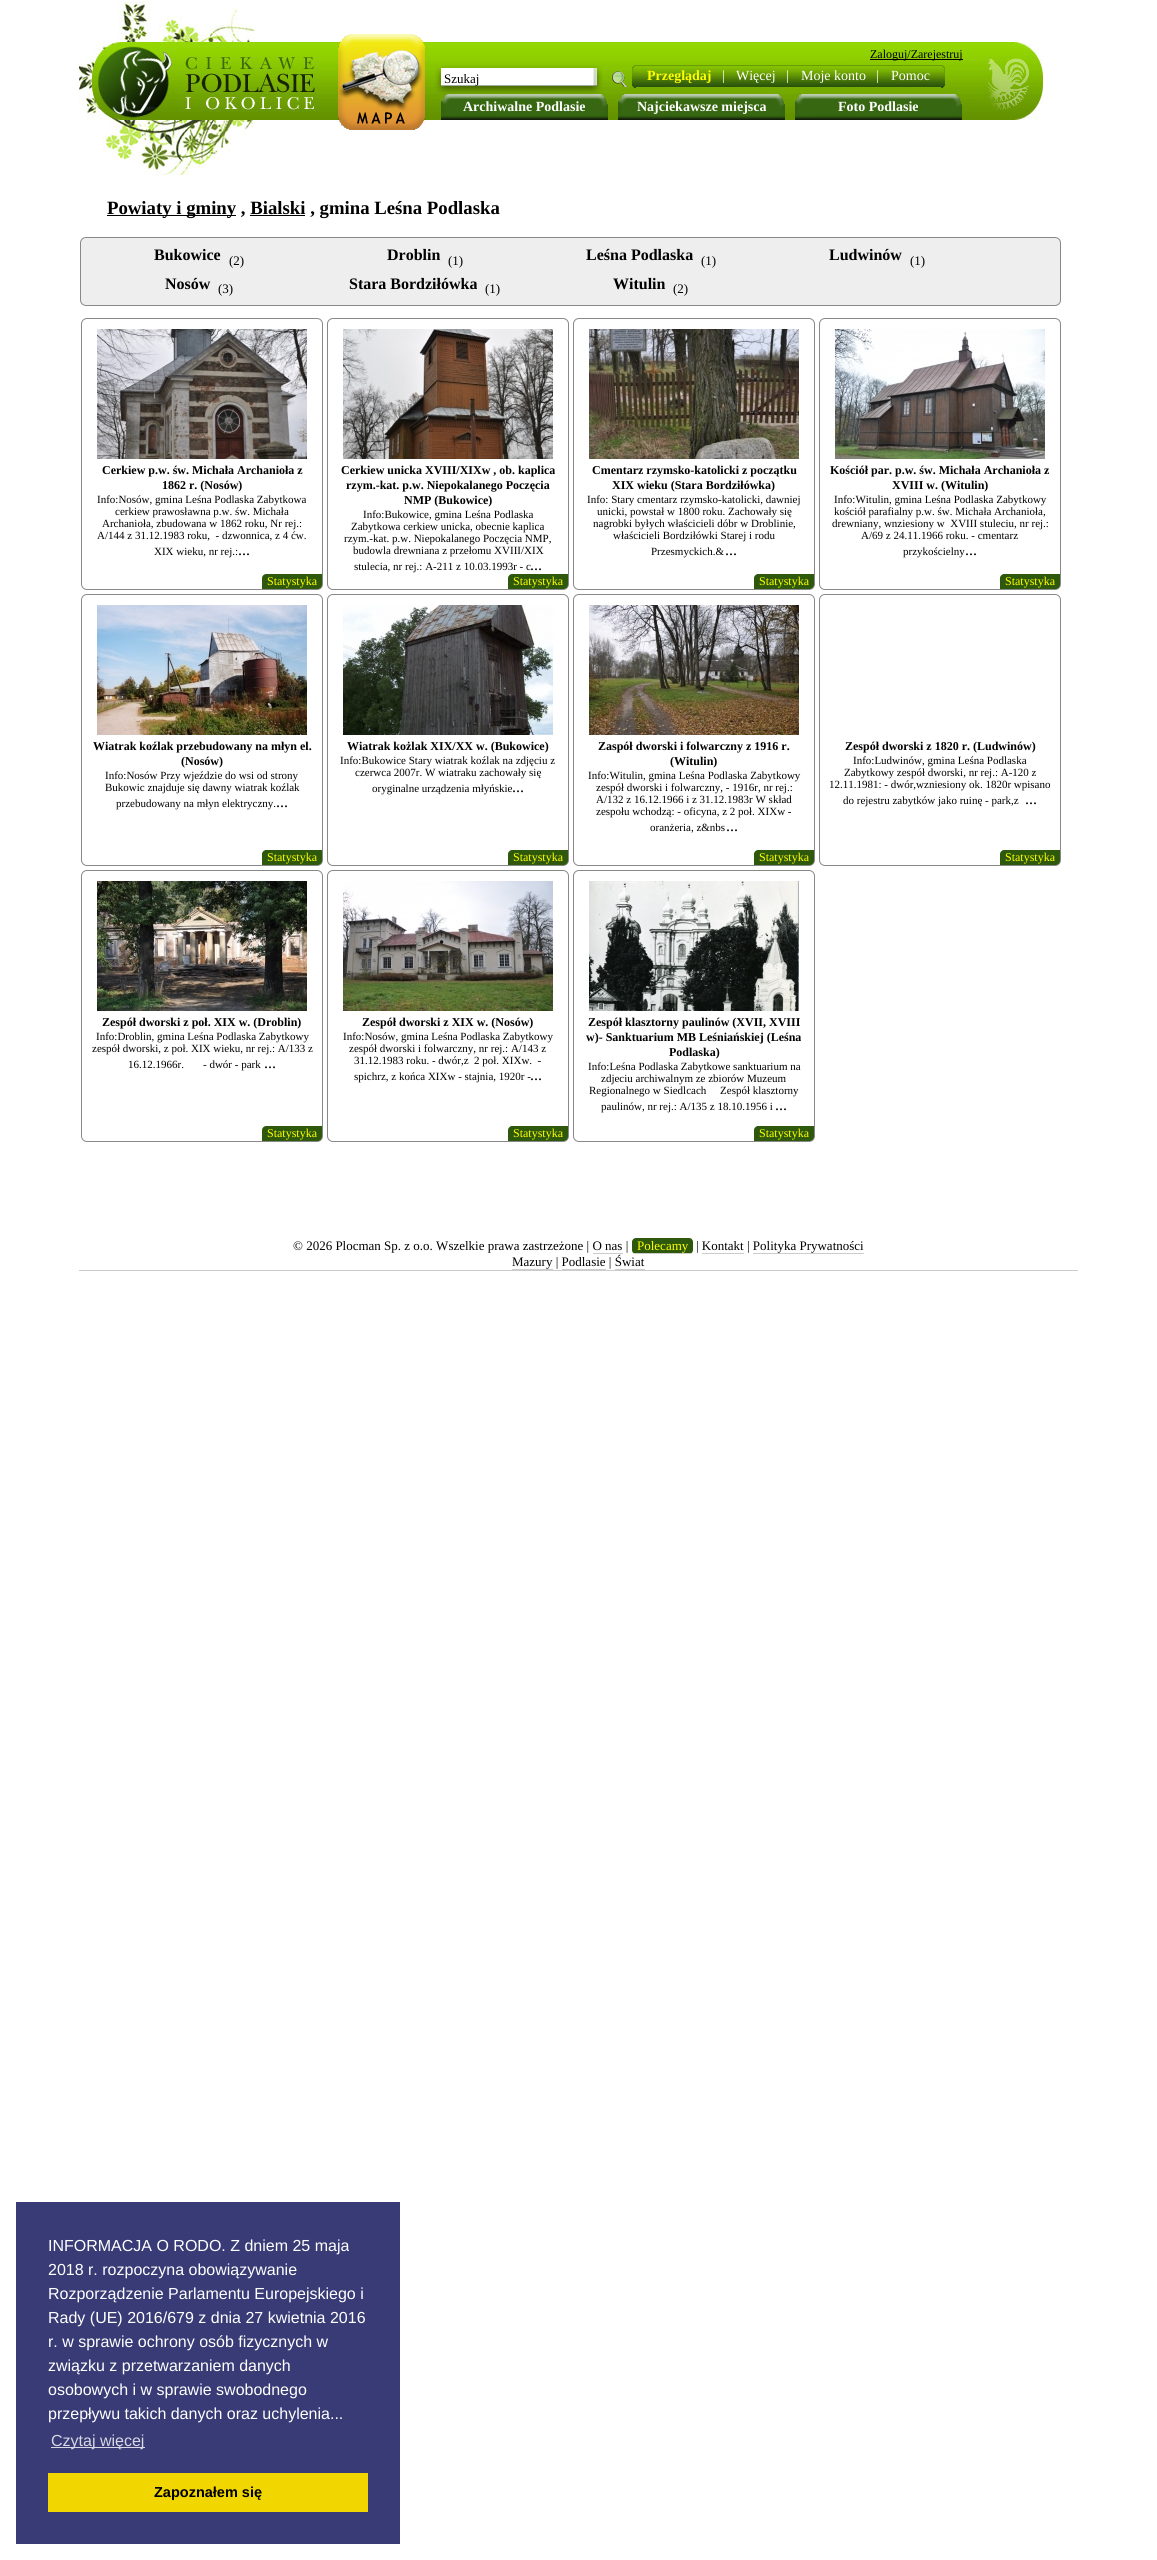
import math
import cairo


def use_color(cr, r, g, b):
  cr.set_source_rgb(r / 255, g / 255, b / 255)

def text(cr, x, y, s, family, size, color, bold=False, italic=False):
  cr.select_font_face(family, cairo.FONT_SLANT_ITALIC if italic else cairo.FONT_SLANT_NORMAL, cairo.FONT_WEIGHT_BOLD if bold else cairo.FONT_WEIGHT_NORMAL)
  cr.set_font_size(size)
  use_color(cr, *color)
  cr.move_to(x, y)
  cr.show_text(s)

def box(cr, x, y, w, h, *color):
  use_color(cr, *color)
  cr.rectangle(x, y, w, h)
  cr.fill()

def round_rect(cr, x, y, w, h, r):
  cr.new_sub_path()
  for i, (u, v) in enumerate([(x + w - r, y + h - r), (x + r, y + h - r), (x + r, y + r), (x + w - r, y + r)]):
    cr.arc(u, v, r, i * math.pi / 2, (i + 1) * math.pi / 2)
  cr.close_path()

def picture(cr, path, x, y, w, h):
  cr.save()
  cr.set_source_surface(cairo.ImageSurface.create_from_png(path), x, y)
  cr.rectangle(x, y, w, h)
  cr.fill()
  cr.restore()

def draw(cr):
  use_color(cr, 255, 255, 255)
  cr.paint()
  picture(cr, "img_01.png", 79, 0, 964, 120)
  box(cr, 870, 59, 93, 1, 0, 0, 0)
  picture(cr, "img_12.png", 441, 94, 167, 26)
  picture(cr, "img_02.png", 435, 65, 168, 30)
  picture(cr, "img_03.png", 612, 71, 16, 16)
  picture(cr, "img_04.png", 338, 34, 87, 96)
  picture(cr, "img_05.png", 338, 34, 87, 96)
  picture(cr, "img_06.png", 632, 65, 4, 23)
  picture(cr, "img_07.png", 636, 65, 99, 22)
  picture(cr, "img_08.png", 735, 65, 65, 22)
  picture(cr, "img_09.png", 800, 65, 90, 22)
  picture(cr, "img_10.png", 890, 65, 51, 22)
  picture(cr, "img_11.png", 941, 65, 4, 23)
  picture(cr, "img_12.png", 618, 94, 167, 26)
  picture(cr, "img_12.png", 795, 94, 167, 26)
  picture(cr, "img_13.png", 103, 120, 152, 55)
  box(cr, 107, 215, 129, 1, 0, 0, 0)
  box(cr, 250, 215, 55, 1, 0, 0, 0)
  use_color(cr, 238, 238, 238)
  round_rect(cr, 80.5, 237.5, 980, 68, 5.5)
  cr.fill_preserve()
  use_color(cr, 136, 136, 136)
  cr.set_line_width(1)
  cr.stroke()
  round_rect(cr, 81.5, 318.5, 241, 271, 5.5)
  cr.stroke()
  picture(cr, "img_14.png", 97, 329, 210, 130)
  use_color(cr, 46, 88, 12)
  cr.new_path()
  cr.move_to(266, 574)
  cr.line_to(322, 574)
  cr.line_to(322, 585)
  cr.curve_to(322, 587, 320, 589, 318, 589)
  cr.line_to(262, 589)
  cr.line_to(262, 578)
  cr.curve_to(262, 576, 264, 574, 266, 574)
  cr.close_path()
  cr.fill()
  round_rect(cr, 327.5, 318.5, 241, 271, 5.5)
  use_color(cr, 136, 136, 136)
  cr.stroke()
  picture(cr, "img_15.png", 343, 329, 210, 130)
  use_color(cr, 46, 88, 12)
  cr.new_path()
  cr.move_to(512, 574)
  cr.line_to(568, 574)
  cr.line_to(568, 585)
  cr.curve_to(568, 587, 566, 589, 564, 589)
  cr.line_to(508, 589)
  cr.line_to(508, 578)
  cr.curve_to(508, 576, 510, 574, 512, 574)
  cr.close_path()
  cr.fill()
  round_rect(cr, 573.5, 318.5, 241, 271, 5.5)
  use_color(cr, 136, 136, 136)
  cr.stroke()
  picture(cr, "img_16.png", 589, 329, 210, 130)
  use_color(cr, 46, 88, 12)
  cr.new_path()
  cr.move_to(758, 574)
  cr.line_to(814, 574)
  cr.line_to(814, 585)
  cr.curve_to(814, 587, 812, 589, 810, 589)
  cr.line_to(754, 589)
  cr.line_to(754, 578)
  cr.curve_to(754, 576, 756, 574, 758, 574)
  cr.close_path()
  cr.fill()
  round_rect(cr, 819.5, 318.5, 241, 271, 5.5)
  use_color(cr, 136, 136, 136)
  cr.stroke()
  picture(cr, "img_17.png", 835, 329, 210, 130)
  use_color(cr, 46, 88, 12)
  cr.new_path()
  cr.move_to(1004, 574)
  cr.line_to(1060, 574)
  cr.line_to(1060, 585)
  cr.curve_to(1060, 587, 1058, 589, 1056, 589)
  cr.line_to(1000, 589)
  cr.line_to(1000, 578)
  cr.curve_to(1000, 576, 1002, 574, 1004, 574)
  cr.close_path()
  cr.fill()
  round_rect(cr, 81.5, 594.5, 241, 271, 5.5)
  use_color(cr, 136, 136, 136)
  cr.stroke()
  picture(cr, "img_18.png", 97, 605, 210, 130)
  use_color(cr, 46, 88, 12)
  cr.new_path()
  cr.move_to(266, 850)
  cr.line_to(322, 850)
  cr.line_to(322, 861)
  cr.curve_to(322, 863, 320, 865, 318, 865)
  cr.line_to(262, 865)
  cr.line_to(262, 854)
  cr.curve_to(262, 852, 264, 850, 266, 850)
  cr.close_path()
  cr.fill()
  round_rect(cr, 327.5, 594.5, 241, 271, 5.5)
  use_color(cr, 136, 136, 136)
  cr.stroke()
  picture(cr, "img_19.png", 343, 605, 210, 130)
  use_color(cr, 46, 88, 12)
  cr.new_path()
  cr.move_to(512, 850)
  cr.line_to(568, 850)
  cr.line_to(568, 861)
  cr.curve_to(568, 863, 566, 865, 564, 865)
  cr.line_to(508, 865)
  cr.line_to(508, 854)
  cr.curve_to(508, 852, 510, 850, 512, 850)
  cr.close_path()
  cr.fill()
  round_rect(cr, 573.5, 594.5, 241, 271, 5.5)
  use_color(cr, 136, 136, 136)
  cr.stroke()
  picture(cr, "img_20.png", 589, 605, 210, 130)
  use_color(cr, 46, 88, 12)
  cr.new_path()
  cr.move_to(758, 850)
  cr.line_to(814, 850)
  cr.line_to(814, 861)
  cr.curve_to(814, 863, 812, 865, 810, 865)
  cr.line_to(754, 865)
  cr.line_to(754, 854)
  cr.curve_to(754, 852, 756, 850, 758, 850)
  cr.close_path()
  cr.fill()
  round_rect(cr, 819.5, 594.5, 241, 271, 5.5)
  use_color(cr, 136, 136, 136)
  cr.stroke()
  use_color(cr, 46, 88, 12)
  cr.new_path()
  cr.move_to(1004, 850)
  cr.line_to(1060, 850)
  cr.line_to(1060, 861)
  cr.curve_to(1060, 863, 1058, 865, 1056, 865)
  cr.line_to(1000, 865)
  cr.line_to(1000, 854)
  cr.curve_to(1000, 852, 1002, 850, 1004, 850)
  cr.close_path()
  cr.fill()
  round_rect(cr, 81.5, 870.5, 241, 271, 5.5)
  use_color(cr, 136, 136, 136)
  cr.stroke()
  picture(cr, "img_21.png", 97, 881, 210, 130)
  use_color(cr, 46, 88, 12)
  cr.new_path()
  cr.move_to(266, 1126)
  cr.line_to(322, 1126)
  cr.line_to(322, 1137)
  cr.curve_to(322, 1139, 320, 1141, 318, 1141)
  cr.line_to(262, 1141)
  cr.line_to(262, 1130)
  cr.curve_to(262, 1128, 264, 1126, 266, 1126)
  cr.close_path()
  cr.fill()
  round_rect(cr, 327.5, 870.5, 241, 271, 5.5)
  use_color(cr, 136, 136, 136)
  cr.stroke()
  picture(cr, "img_22.png", 343, 881, 210, 130)
  use_color(cr, 46, 88, 12)
  cr.new_path()
  cr.move_to(512, 1126)
  cr.line_to(568, 1126)
  cr.line_to(568, 1137)
  cr.curve_to(568, 1139, 566, 1141, 564, 1141)
  cr.line_to(508, 1141)
  cr.line_to(508, 1130)
  cr.curve_to(508, 1128, 510, 1126, 512, 1126)
  cr.close_path()
  cr.fill()
  round_rect(cr, 573.5, 870.5, 241, 271, 5.5)
  use_color(cr, 136, 136, 136)
  cr.stroke()
  picture(cr, "img_23.png", 589, 881, 210, 130)
  use_color(cr, 46, 88, 12)
  cr.new_path()
  cr.move_to(758, 1126)
  cr.line_to(814, 1126)
  cr.line_to(814, 1137)
  cr.curve_to(814, 1139, 812, 1141, 810, 1141)
  cr.line_to(754, 1141)
  cr.line_to(754, 1130)
  cr.curve_to(754, 1128, 756, 1126, 758, 1126)
  cr.close_path()
  cr.fill()
  box(cr, 79, 1270, 999, 1, 204, 204, 204)
  use_color(cr, 46, 88, 12)
  round_rect(cr, 632, 1238, 61, 16, 4)
  cr.fill()
  box(cr, 634, 1253, 57, 1, 204, 204, 204)
  box(cr, 593, 1253, 30, 1, 204, 204, 204)
  box(cr, 702, 1253, 42, 1, 204, 204, 204)
  box(cr, 753, 1253, 111, 1, 204, 204, 204)
  box(cr, 512, 1269, 41, 1, 204, 204, 204)
  box(cr, 562, 1269, 44, 1, 204, 204, 204)
  box(cr, 615, 1269, 30, 1, 204, 204, 204)
  box(cr, 16, 2202, 384, 342, 56, 59, 117)
  box(cr, 51, 2447, 94, 1, 215, 216, 227)
  box(cr, 48, 2473, 320, 39, 241, 214, 0)
  text(cr, 870, 58, "Zaloguj/Zarejestruj", "Liberation Serif", 12, (0, 0, 0))
  text(cr, 444, 83, "Szukaj", "Liberation Serif", 13, (0, 0, 0))
  text(cr, 647, 80, "Przeglądaj", "Liberation Serif", 14, (255, 255, 0), bold=True)
  text(cr, 722, 80, "|", "Liberation Serif", 14, (255, 255, 255))
  text(cr, 736, 80, "Więcej", "Liberation Serif", 14, (255, 255, 255))
  text(cr, 786, 80, "|", "Liberation Serif", 14, (255, 255, 255))
  text(cr, 801, 80, "Moje konto", "Liberation Serif", 14, (255, 255, 255))
  text(cr, 876, 80, "|", "Liberation Serif", 14, (255, 255, 255))
  text(cr, 891, 80, "Pomoc", "Liberation Serif", 14, (255, 255, 255))
  text(cr, 463, 111, "Archiwalne Podlasie", "Liberation Serif", 14, (255, 255, 255), bold=True)
  text(cr, 637, 111, "Najciekawsze miejsca", "Liberation Serif", 14, (255, 255, 255), bold=True)
  text(cr, 838, 111, "Foto Podlasie", "Liberation Serif", 14, (255, 255, 255), bold=True)
  text(cr, 107, 214, "Powiaty i gminy , Bialski , gmina Leśna Podlaska", "Liberation Serif", 18.75, (0, 0, 0), bold=True)
  text(cr, 154, 260, "Bukowice", "Liberation Serif", 16, (0, 0, 0), bold=True)
  text(cr, 229, 265, "(2)", "Liberation Serif", 13, (0, 0, 0))
  text(cr, 387, 260, "Droblin", "Liberation Serif", 16, (0, 0, 0), bold=True)
  text(cr, 448, 265, "(1)", "Liberation Serif", 13, (0, 0, 0))
  text(cr, 586, 260, "Leśna Podlaska", "Liberation Serif", 16, (0, 0, 0), bold=True)
  text(cr, 701, 265, "(1)", "Liberation Serif", 13, (0, 0, 0))
  text(cr, 829, 260, "Ludwinów", "Liberation Serif", 16, (0, 0, 0), bold=True)
  text(cr, 910, 265, "(1)", "Liberation Serif", 13, (0, 0, 0))
  text(cr, 165, 289, "Nosów", "Liberation Serif", 16, (0, 0, 0), bold=True)
  text(cr, 218, 293, "(3)", "Liberation Serif", 13, (0, 0, 0))
  text(cr, 349, 289, "Stara Bordziłówka", "Liberation Serif", 16, (0, 0, 0), bold=True)
  text(cr, 485, 293, "(1)", "Liberation Serif", 13, (0, 0, 0))
  text(cr, 613, 289, "Witulin", "Liberation Serif", 16, (0, 0, 0), bold=True)
  text(cr, 673, 293, "(2)", "Liberation Serif", 13, (0, 0, 0))
  text(cr, 102, 474, "Cerkiew p.w. św. Michała Archanioła z", "Liberation Serif", 12, (0, 0, 0), bold=True)
  text(cr, 162, 489, "1862 r. (Nosów)", "Liberation Serif", 12, (0, 0, 0), bold=True)
  text(cr, 97, 503, "Info:Nosów, gmina Leśna Podlaska Zabytkowa", "Liberation Serif", 11, (0, 0, 0))
  text(cr, 115, 515, "cerkiew prawosławna p.w. św. Michała", "Liberation Serif", 11, (0, 0, 0))
  text(cr, 102, 527, "Archanioła, zbudowana w 1862 roku, Nr rej.:", "Liberation Serif", 11, (0, 0, 0))
  text(cr, 97, 539, "A/144 z 31.12.1983 roku,  - dzwonnica, z 4 ćw.", "Liberation Serif", 11, (0, 0, 0))
  text(cr, 154, 555, "XIX wieku, nr rej.:", "Liberation Serif", 11, (0, 0, 0))
  text(cr, 238, 555, "...", "Liberation Serif", 16, (0, 0, 0))
  text(cr, 267, 585, "Statystyka", "Liberation Serif", 12, (255, 255, 0))
  text(cr, 341, 474, "Cerkiew unicka XVIII/XIXw , ob. kaplica", "Liberation Serif", 12, (0, 0, 0), bold=True)
  text(cr, 346, 489, "rzym.-kat. p.w. Niepokalanego Poczęcia", "Liberation Serif", 12, (0, 0, 0), bold=True)
  text(cr, 404, 504, "NMP (Bukowice)", "Liberation Serif", 12, (0, 0, 0), bold=True)
  text(cr, 363, 518, "Info:Bukowice, gmina Leśna Podlaska", "Liberation Serif", 11, (0, 0, 0))
  text(cr, 351, 530, "Zabytkowa cerkiew unicka, obecnie kaplica", "Liberation Serif", 11, (0, 0, 0))
  text(cr, 344, 542, "rzym.-kat. p.w. Niepokalanego Poczęcia NMP,", "Liberation Serif", 11, (0, 0, 0))
  text(cr, 353, 554, "budowla drewniana z przełomu XVIII/XIX", "Liberation Serif", 11, (0, 0, 0))
  text(cr, 354, 570, "stulecia, nr rej.: A-211 z 10.03.1993r - c", "Liberation Serif", 11, (0, 0, 0))
  text(cr, 530, 570, "...", "Liberation Serif", 16, (0, 0, 0))
  text(cr, 513, 585, "Statystyka", "Liberation Serif", 12, (255, 255, 0))
  text(cr, 592, 474, "Cmentarz rzymsko-katolicki z początku", "Liberation Serif", 12, (0, 0, 0), bold=True)
  text(cr, 612, 489, "XIX wieku (Stara Bordziłówka)", "Liberation Serif", 12, (0, 0, 0), bold=True)
  text(cr, 587, 503, "Info: Stary cmentarz rzymsko-katolicki, dawniej", "Liberation Serif", 11, (0, 0, 0))
  text(cr, 597, 515, "unicki, powstał w 1800 roku. Zachowały się", "Liberation Serif", 11, (0, 0, 0))
  text(cr, 593, 527, "nagrobki byłych właścicieli dóbr w Droblinie,", "Liberation Serif", 11, (0, 0, 0))
  text(cr, 613, 539, "właścicieli Bordziłówki Starej i rodu", "Liberation Serif", 11, (0, 0, 0))
  text(cr, 651, 555, "Przesmyckich.&", "Liberation Serif", 11, (0, 0, 0))
  text(cr, 725, 555, "...", "Liberation Serif", 16, (0, 0, 0))
  text(cr, 759, 585, "Statystyka", "Liberation Serif", 12, (255, 255, 0))
  text(cr, 830, 474, "Kościół par. p.w. św. Michała Archanioła z", "Liberation Serif", 12, (0, 0, 0), bold=True)
  text(cr, 892, 489, "XVIII w. (Witulin)", "Liberation Serif", 12, (0, 0, 0), bold=True)
  text(cr, 834, 503, "Info:Witulin, gmina Leśna Podlaska Zabytkowy", "Liberation Serif", 11, (0, 0, 0))
  text(cr, 834, 515, "kościół parafialny p.w. św. Michała Archanioła,", "Liberation Serif", 11, (0, 0, 0))
  text(cr, 832, 527, "drewniany, wnziesiony w  XVIII stuleciu, nr rej.:", "Liberation Serif", 11, (0, 0, 0))
  text(cr, 861, 539, "A/69 z 24.11.1966 roku. - cmentarz", "Liberation Serif", 11, (0, 0, 0))
  text(cr, 903, 555, "przykościelny", "Liberation Serif", 11, (0, 0, 0))
  text(cr, 965, 555, "...", "Liberation Serif", 16, (0, 0, 0))
  text(cr, 1005, 585, "Statystyka", "Liberation Serif", 12, (255, 255, 0))
  text(cr, 93, 750, "Wiatrak koźlak przebudowany na młyn el.", "Liberation Serif", 12, (0, 0, 0), bold=True)
  text(cr, 181, 765, "(Nosów)", "Liberation Serif", 12, (0, 0, 0), bold=True)
  text(cr, 105, 779, "Info:Nosów Przy wjeździe do wsi od strony", "Liberation Serif", 11, (0, 0, 0))
  text(cr, 105, 791, "Bukowic znajduje się dawny wiatrak koźlak", "Liberation Serif", 11, (0, 0, 0))
  text(cr, 116, 807, "przebudowany na młyn elektryczny.", "Liberation Serif", 11, (0, 0, 0))
  text(cr, 276, 807, "...", "Liberation Serif", 16, (0, 0, 0))
  text(cr, 267, 861, "Statystyka", "Liberation Serif", 12, (255, 255, 0))
  text(cr, 347, 750, "Wiatrak kożlak XIX/XX w. (Bukowice)", "Liberation Serif", 12, (0, 0, 0), bold=True)
  text(cr, 340, 764, "Info:Bukowice Stary wiatrak koźlak na zdjęciu z", "Liberation Serif", 11, (0, 0, 0))
  text(cr, 355, 776, "czerwca 2007r. W wiatraku zachowały się", "Liberation Serif", 11, (0, 0, 0))
  text(cr, 372, 792, "oryginalne urządzenia młyńskie", "Liberation Serif", 11, (0, 0, 0))
  text(cr, 512, 792, "...", "Liberation Serif", 16, (0, 0, 0))
  text(cr, 513, 861, "Statystyka", "Liberation Serif", 12, (255, 255, 0))
  text(cr, 598, 750, "Zaspół dworski i folwarczny z 1916 r.", "Liberation Serif", 12, (0, 0, 0), bold=True)
  text(cr, 670, 765, "(Witulin)", "Liberation Serif", 12, (0, 0, 0), bold=True)
  text(cr, 588, 779, "Info:Witulin, gmina Leśna Podlaska Zabytkowy", "Liberation Serif", 11, (0, 0, 0))
  text(cr, 596, 791, "zespół dworski i folwarczny, - 1916r, nr rej.:", "Liberation Serif", 11, (0, 0, 0))
  text(cr, 596, 803, "A/132 z 16.12.1966 i z 31.12.1983r W skład", "Liberation Serif", 11, (0, 0, 0))
  text(cr, 596, 815, "zespołu wchodzą: - oficyna, z 2 poł. XIXw -", "Liberation Serif", 11, (0, 0, 0))
  text(cr, 650, 831, "oranżeria, z&nbs", "Liberation Serif", 11, (0, 0, 0))
  text(cr, 726, 831, "...", "Liberation Serif", 16, (0, 0, 0))
  text(cr, 759, 861, "Statystyka", "Liberation Serif", 12, (255, 255, 0))
  text(cr, 845, 750, "Zespół dworski z 1820 r. (Ludwinów)", "Liberation Serif", 12, (0, 0, 0), bold=True)
  text(cr, 853, 764, "Info:Ludwinów, gmina Leśna Podlaska", "Liberation Serif", 11, (0, 0, 0))
  text(cr, 844, 776, "Zabytkowy zespół dworski, nr rej.: A-120 z", "Liberation Serif", 11, (0, 0, 0))
  text(cr, 829, 788, "12.11.1981: - dwór,wzniesiony ok. 1820r wpisano", "Liberation Serif", 11, (0, 0, 0))
  text(cr, 843, 804, "do rejestru zabytków jako ruinę - park,z", "Liberation Serif", 11, (0, 0, 0))
  text(cr, 1025, 804, "...", "Liberation Serif", 16, (0, 0, 0))
  text(cr, 1005, 861, "Statystyka", "Liberation Serif", 12, (255, 255, 0))
  text(cr, 102, 1026, "Zespół dworski z poł. XIX w. (Droblin)", "Liberation Serif", 12, (0, 0, 0), bold=True)
  text(cr, 96, 1040, "Info:Droblin, gmina Leśna Podlaska Zabytkowy", "Liberation Serif", 11, (0, 0, 0))
  text(cr, 92, 1052, "zespół dworski, z poł. XIX wieku, nr rej.: A/133 z", "Liberation Serif", 11, (0, 0, 0))
  text(cr, 128, 1068, "16.12.1966r.", "Liberation Serif", 11, (0, 0, 0))
  text(cr, 203, 1068, "- dwór - park", "Liberation Serif", 11, (0, 0, 0))
  text(cr, 264, 1068, "...", "Liberation Serif", 16, (0, 0, 0))
  text(cr, 267, 1137, "Statystyka", "Liberation Serif", 12, (255, 255, 0))
  text(cr, 362, 1026, "Zespół dworski z XIX w. (Nosów)", "Liberation Serif", 12, (0, 0, 0), bold=True)
  text(cr, 343, 1040, "Info:Nosów, gmina Leśna Podlaska Zabytkowy", "Liberation Serif", 11, (0, 0, 0))
  text(cr, 349, 1052, "zespół dworski i folwarczny, nr rej.: A/143 z", "Liberation Serif", 11, (0, 0, 0))
  text(cr, 354, 1064, "31.12.1983 roku. - dwór,z  2 poł. XIXw.  -", "Liberation Serif", 11, (0, 0, 0))
  text(cr, 354, 1080, "spichrz, z końca XIXw - stajnia, 1920r -", "Liberation Serif", 11, (0, 0, 0))
  text(cr, 530, 1080, "...", "Liberation Serif", 16, (0, 0, 0))
  text(cr, 513, 1137, "Statystyka", "Liberation Serif", 12, (255, 255, 0))
  text(cr, 588, 1026, "Zespół klasztorny paulinów (XVII, XVIII", "Liberation Serif", 12, (0, 0, 0), bold=True)
  text(cr, 586, 1041, "w)- Sanktuarium MB Leśniańskiej (Leśna", "Liberation Serif", 12, (0, 0, 0), bold=True)
  text(cr, 669, 1056, "Podlaska)", "Liberation Serif", 12, (0, 0, 0), bold=True)
  text(cr, 588, 1070, "Info:Leśna Podlaska Zabytkowe sanktuarium na", "Liberation Serif", 11, (0, 0, 0))
  text(cr, 601, 1082, "zdjeciu archiwalnym ze zbiorów Muzeum", "Liberation Serif", 11, (0, 0, 0))
  text(cr, 589, 1094, "Regionalnego w Siedlcach     Zespół klasztorny", "Liberation Serif", 11, (0, 0, 0))
  text(cr, 601, 1110, "paulinów, nr rej.: A/135 z 18.10.1956 i", "Liberation Serif", 11, (0, 0, 0))
  text(cr, 775, 1110, "...", "Liberation Serif", 16, (0, 0, 0))
  text(cr, 759, 1137, "Statystyka", "Liberation Serif", 12, (255, 255, 0))
  text(cr, 293, 1250, "© 2026 Plocman Sp. z o.o. Wszelkie prawa zastrzeżone | O nas |", "Liberation Serif", 13, (0, 0, 0))
  text(cr, 637, 1250, "Polecamy", "Liberation Serif", 13, (255, 255, 0))
  text(cr, 696, 1250, "| Kontakt | Polityka Prywatności", "Liberation Serif", 13, (0, 0, 0))
  text(cr, 512, 1266, "Mazury | Podlasie | Świat", "Liberation Serif", 13, (0, 0, 0))
  text(cr, 48, 2251, "INFORMACJA O RODO. Z dniem 25 maja", "Liberation Sans", 16, (255, 255, 255))
  text(cr, 48, 2275, "2018 r. rozpoczyna obowiązywanie", "Liberation Sans", 16, (255, 255, 255))
  text(cr, 48, 2299, "Rozporządzenie Parlamentu Europejskiego i", "Liberation Sans", 16, (255, 255, 255))
  text(cr, 48, 2323, "Rady (UE) 2016/679 z dnia 27 kwietnia 2016", "Liberation Sans", 16, (255, 255, 255))
  text(cr, 48, 2347, "r. w sprawie ochrony osób fizycznych w", "Liberation Sans", 16, (255, 255, 255))
  text(cr, 48, 2371, "związku z przetwarzaniem danych", "Liberation Sans", 16, (255, 255, 255))
  text(cr, 48, 2395, "osobowych i w sprawie swobodnego", "Liberation Sans", 16, (255, 255, 255))
  text(cr, 48, 2419, "przepływu takich danych oraz uchylenia...", "Liberation Sans", 16, (255, 255, 255))
  text(cr, 51, 2446, "Czytaj więcej", "Liberation Sans", 16, (215, 216, 227))
  text(cr, 154, 2497, "Zapoznałem się", "Liberation Sans", 14.5, (0, 0, 0), bold=True)


surface = cairo.ImageSurface(cairo.FORMAT_RGB24, 1157, 2560)
cr = cairo.Context(surface)
options = cairo.FontOptions()
options.set_hint_metrics(cairo.HINT_METRICS_OFF)
options.set_hint_style(cairo.HINT_STYLE_NONE)
cr.set_font_options(options)
cr.set_miter_limit(4)
draw(cr)
surface.write_to_png("out.png")
